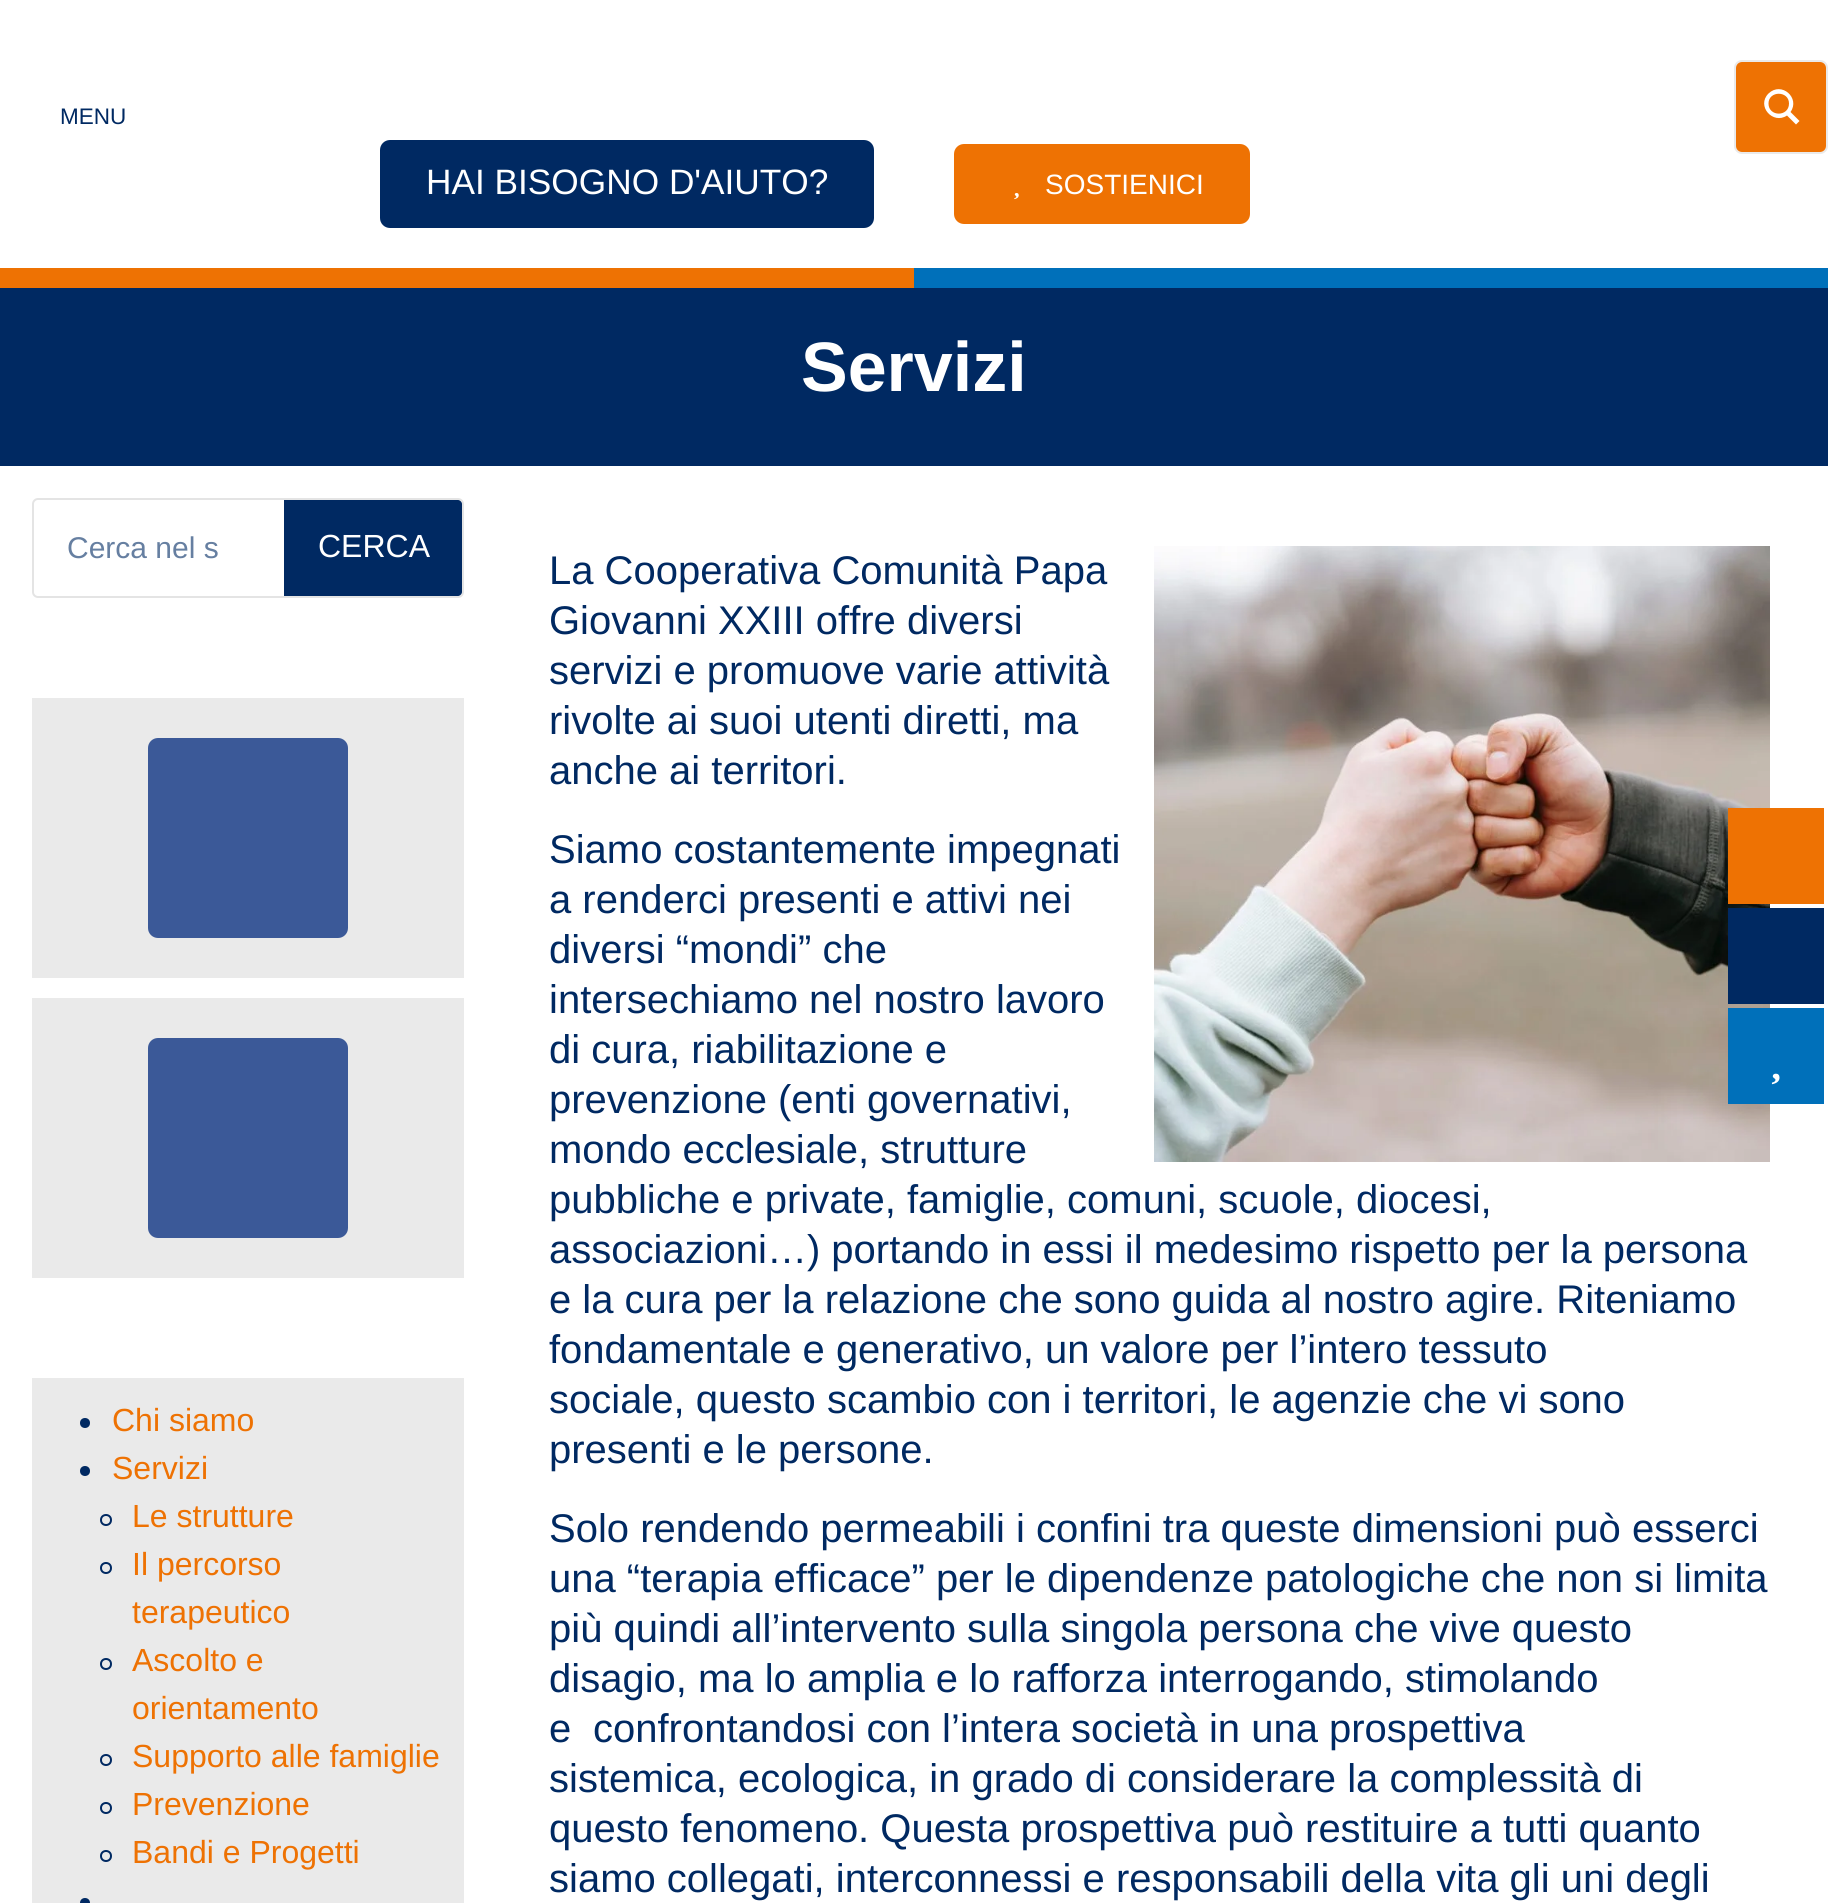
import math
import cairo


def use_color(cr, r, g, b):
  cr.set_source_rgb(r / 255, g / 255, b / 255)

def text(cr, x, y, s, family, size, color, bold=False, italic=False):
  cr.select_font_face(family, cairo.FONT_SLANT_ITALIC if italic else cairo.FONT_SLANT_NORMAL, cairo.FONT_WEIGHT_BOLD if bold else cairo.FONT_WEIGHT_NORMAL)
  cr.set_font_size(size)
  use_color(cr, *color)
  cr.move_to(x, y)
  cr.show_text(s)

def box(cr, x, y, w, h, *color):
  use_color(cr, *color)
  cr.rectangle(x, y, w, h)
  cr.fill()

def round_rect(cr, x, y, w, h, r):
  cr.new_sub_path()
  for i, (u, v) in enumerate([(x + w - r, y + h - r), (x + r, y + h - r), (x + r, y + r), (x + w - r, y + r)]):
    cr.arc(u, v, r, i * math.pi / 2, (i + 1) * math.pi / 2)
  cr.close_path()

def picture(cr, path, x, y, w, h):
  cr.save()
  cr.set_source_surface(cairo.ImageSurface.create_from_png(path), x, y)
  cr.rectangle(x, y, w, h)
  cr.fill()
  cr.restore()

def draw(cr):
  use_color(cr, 255, 255, 255)
  cr.paint()
  use_color(cr, 0, 41, 98)
  round_rect(cr, 383, 143, 488, 82, 7)
  cr.fill_preserve()
  cr.set_line_width(6)
  cr.stroke()
  use_color(cr, 238, 114, 3)
  round_rect(cr, 957, 147, 290, 74, 7)
  cr.fill_preserve()
  cr.stroke()
  picture(cr, "img_01.png", 1014, 193, 5, 7)
  box(cr, 0, 288, 1828, 178, 0, 41, 98)
  box(cr, 0, 268, 914, 20, 238, 114, 3)
  box(cr, 914, 268, 914, 20, 0, 112, 186)
  round_rect(cr, 1735, 61, 92, 92, 7)
  use_color(cr, 234, 234, 234)
  cr.set_line_width(2)
  cr.stroke()
  use_color(cr, 238, 114, 3)
  round_rect(cr, 1736, 62, 90, 90, 6)
  cr.fill()
  use_color(cr, 255, 255, 255)
  cr.new_path()
  cr.move_to(1799.5, 121)
  cr.line_to(1790.5, 112)
  cr.curve_to(1800.5, 98, 1781.5, 81, 1768.5, 93.5)
  cr.curve_to(1756, 106, 1773, 125, 1787, 115.5)
  cr.line_to(1796, 124.5)
  cr.close_path()
  cr.move_to(1768.5, 103.5)
  cr.curve_to(1768.5, 90.5, 1789, 90.5, 1789, 103.5)
  cr.curve_to(1789, 117, 1768.5, 117, 1768.5, 103.5)
  cr.close_path()
  cr.fill()
  round_rect(cr, 33, 499, 430, 98, 5)
  use_color(cr, 228, 228, 228)
  cr.stroke()
  use_color(cr, 0, 41, 98)
  cr.new_path()
  cr.move_to(284, 500)
  cr.line_to(458, 500)
  cr.curve_to(460, 500, 462, 502, 462, 504)
  cr.line_to(462, 592)
  cr.curve_to(462, 594, 460, 596, 458, 596)
  cr.line_to(284, 596)
  cr.close_path()
  cr.fill()
  box(cr, 32, 698, 432, 280, 234, 234, 234)
  use_color(cr, 59, 89, 152)
  round_rect(cr, 148, 738, 200, 200, 10)
  cr.fill()
  box(cr, 32, 998, 432, 280, 234, 234, 234)
  use_color(cr, 59, 89, 152)
  round_rect(cr, 148, 1038, 200, 200, 10)
  cr.fill()
  box(cr, 32, 1378, 432, 525, 234, 234, 234)
  use_color(cr, 0, 41, 98)
  cr.arc(85, 1423, 5, 0, 2 * math.pi)
  cr.fill()
  cr.arc(85, 1471, 5, 0, 2 * math.pi)
  cr.fill()
  cr.arc(106, 1520, 5, 0, 2 * math.pi)
  cr.stroke()
  cr.arc(106, 1568, 5, 0, 2 * math.pi)
  cr.stroke()
  cr.arc(106, 1664, 5, 0, 2 * math.pi)
  cr.stroke()
  cr.arc(106, 1760, 5, 0, 2 * math.pi)
  cr.stroke()
  cr.arc(106, 1808, 5, 0, 2 * math.pi)
  cr.stroke()
  cr.arc(106, 1856, 5, 0, 2 * math.pi)
  cr.stroke()
  cr.arc(85, 1903, 5, 0, 2 * math.pi)
  cr.fill()
  picture(cr, "img_02.png", 1154, 546, 616, 616)
  box(cr, 1728, 808, 96, 96, 238, 114, 3)
  box(cr, 1728, 908, 96, 96, 0, 41, 98)
  box(cr, 1728, 1008, 96, 96, 0, 112, 186)
  picture(cr, "img_03.png", 1771, 1073, 9, 12)
  text(cr, 60, 124, "MENU", "Liberation Sans", 22.5, (0, 41, 98))
  text(cr, 426, 194, "HAI BISOGNO D'AIUTO?", "Liberation Sans", 35.25, (255, 255, 255))
  text(cr, 1045, 194, "SOSTIENICI", "Liberation Sans", 28, (255, 255, 255))
  text(cr, 801, 391, "Servizi", "Liberation Sans", 70, (255, 255, 255), bold=True)
  text(cr, 67, 558, "Cerca nel s", "Liberation Sans", 30, (102, 127, 161))
  text(cr, 318, 557, "CERCA", "Liberation Sans", 32, (255, 255, 255))
  text(cr, 112, 1431, "Chi siamo", "Liberation Sans", 32, (238, 114, 3))
  text(cr, 112, 1479, "Servizi", "Liberation Sans", 32, (238, 114, 3))
  text(cr, 132, 1527, "Le strutture", "Liberation Sans", 32, (238, 114, 3))
  text(cr, 132, 1575, "Il percorso", "Liberation Sans", 32, (238, 114, 3))
  text(cr, 132, 1623, "terapeutico", "Liberation Sans", 32, (238, 114, 3))
  text(cr, 132, 1671, "Ascolto e", "Liberation Sans", 32, (238, 114, 3))
  text(cr, 132, 1719, "orientamento", "Liberation Sans", 32, (238, 114, 3))
  text(cr, 132, 1767, "Supporto alle famiglie", "Liberation Sans", 32, (238, 114, 3))
  text(cr, 132, 1815, "Prevenzione", "Liberation Sans", 32, (238, 114, 3))
  text(cr, 132, 1863, "Bandi e Progetti", "Liberation Sans", 32, (238, 114, 3))
  text(cr, 549, 584, "La Cooperativa Comunità Papa", "Liberation Sans", 40, (0, 41, 98))
  text(cr, 549, 634, "Giovanni XXIII offre diversi", "Liberation Sans", 40, (0, 41, 98))
  text(cr, 549, 684, "servizi e promuove varie attività", "Liberation Sans", 40, (0, 41, 98))
  text(cr, 549, 734, "rivolte ai suoi utenti diretti, ma", "Liberation Sans", 40, (0, 41, 98))
  text(cr, 549, 784, "anche ai territori.", "Liberation Sans", 40, (0, 41, 98))
  text(cr, 549, 863, "Siamo costantemente impegnati", "Liberation Sans", 40, (0, 41, 98))
  text(cr, 549, 913, "a renderci presenti e attivi nei", "Liberation Sans", 40, (0, 41, 98))
  text(cr, 549, 963, "diversi “mondi” che", "Liberation Sans", 40, (0, 41, 98))
  text(cr, 549, 1013, "intersechiamo nel nostro lavoro", "Liberation Sans", 40, (0, 41, 98))
  text(cr, 549, 1063, "di cura, riabilitazione e", "Liberation Sans", 40, (0, 41, 98))
  text(cr, 549, 1113, "prevenzione (enti governativi,", "Liberation Sans", 40, (0, 41, 98))
  text(cr, 549, 1163, "mondo ecclesiale, strutture", "Liberation Sans", 40, (0, 41, 98))
  text(cr, 549, 1213, "pubbliche e private, famiglie, comuni, scuole, diocesi,", "Liberation Sans", 40, (0, 41, 98))
  text(cr, 549, 1263, "associazioni…) portando in essi il medesimo rispetto per la persona", "Liberation Sans", 40, (0, 41, 98))
  text(cr, 549, 1313, "e la cura per la relazione che sono guida al nostro agire. Riteniamo", "Liberation Sans", 40, (0, 41, 98))
  text(cr, 549, 1363, "fondamentale e generativo, un valore per l’intero tessuto", "Liberation Sans", 40, (0, 41, 98))
  text(cr, 549, 1413, "sociale, questo scambio con i territori, le agenzie che vi sono", "Liberation Sans", 40, (0, 41, 98))
  text(cr, 549, 1463, "presenti e le persone.", "Liberation Sans", 40, (0, 41, 98))
  text(cr, 549, 1542, "Solo rendendo permeabili i confini tra queste dimensioni può esserci", "Liberation Sans", 40, (0, 41, 98))
  text(cr, 549, 1592, "una “terapia efficace” per le dipendenze patologiche che non si limita", "Liberation Sans", 40, (0, 41, 98))
  text(cr, 549, 1642, "più quindi all’intervento sulla singola persona che vive questo", "Liberation Sans", 40, (0, 41, 98))
  text(cr, 549, 1692, "disagio, ma lo amplia e lo rafforza interrogando, stimolando", "Liberation Sans", 40, (0, 41, 98))
  text(cr, 549, 1742, "e", "Liberation Sans", 40, (0, 41, 98))
  text(cr, 593, 1742, "confrontandosi con l’intera società in una prospettiva", "Liberation Sans", 40, (0, 41, 98))
  text(cr, 549, 1792, "sistemica, ecologica, in grado di considerare la complessità di", "Liberation Sans", 40, (0, 41, 98))
  text(cr, 549, 1842, "questo fenomeno. Questa prospettiva può restituire a tutti quanto", "Liberation Sans", 40, (0, 41, 98))
  text(cr, 549, 1892, "siamo collegati, interconnessi e responsabili della vita gli uni degli", "Liberation Sans", 40, (0, 41, 98))


surface = cairo.ImageSurface(cairo.FORMAT_RGB24, 1828, 1903)
cr = cairo.Context(surface)
options = cairo.FontOptions()
options.set_hint_metrics(cairo.HINT_METRICS_OFF)
options.set_hint_style(cairo.HINT_STYLE_NONE)
cr.set_font_options(options)
cr.set_miter_limit(4)
draw(cr)
surface.write_to_png("out.png")
